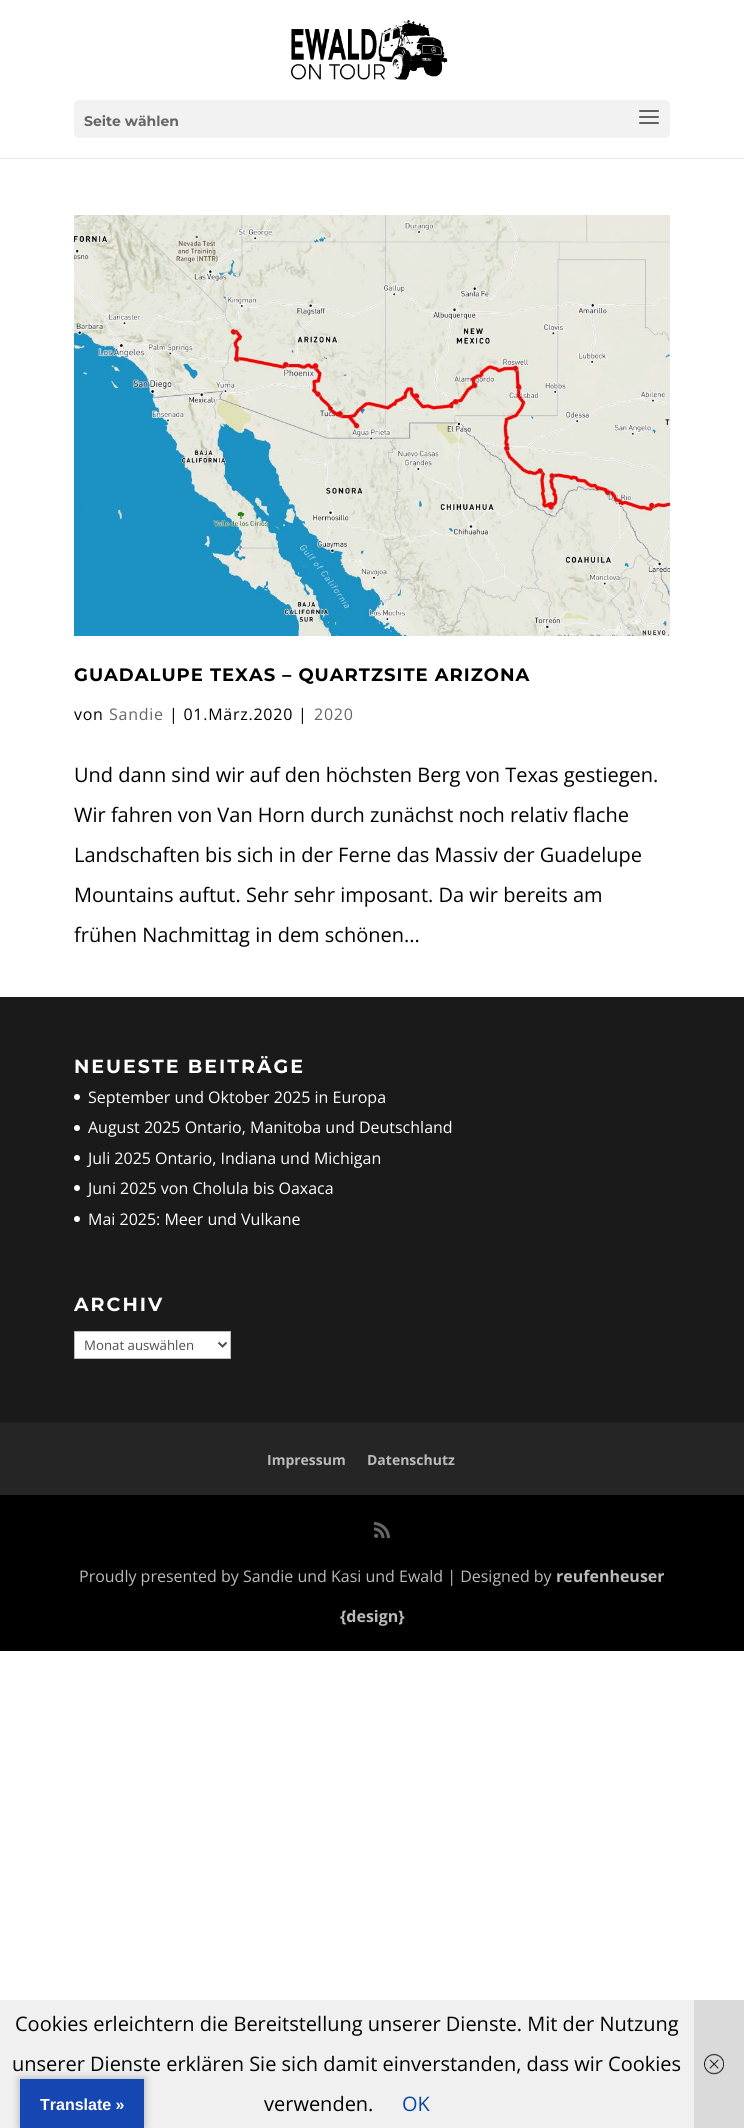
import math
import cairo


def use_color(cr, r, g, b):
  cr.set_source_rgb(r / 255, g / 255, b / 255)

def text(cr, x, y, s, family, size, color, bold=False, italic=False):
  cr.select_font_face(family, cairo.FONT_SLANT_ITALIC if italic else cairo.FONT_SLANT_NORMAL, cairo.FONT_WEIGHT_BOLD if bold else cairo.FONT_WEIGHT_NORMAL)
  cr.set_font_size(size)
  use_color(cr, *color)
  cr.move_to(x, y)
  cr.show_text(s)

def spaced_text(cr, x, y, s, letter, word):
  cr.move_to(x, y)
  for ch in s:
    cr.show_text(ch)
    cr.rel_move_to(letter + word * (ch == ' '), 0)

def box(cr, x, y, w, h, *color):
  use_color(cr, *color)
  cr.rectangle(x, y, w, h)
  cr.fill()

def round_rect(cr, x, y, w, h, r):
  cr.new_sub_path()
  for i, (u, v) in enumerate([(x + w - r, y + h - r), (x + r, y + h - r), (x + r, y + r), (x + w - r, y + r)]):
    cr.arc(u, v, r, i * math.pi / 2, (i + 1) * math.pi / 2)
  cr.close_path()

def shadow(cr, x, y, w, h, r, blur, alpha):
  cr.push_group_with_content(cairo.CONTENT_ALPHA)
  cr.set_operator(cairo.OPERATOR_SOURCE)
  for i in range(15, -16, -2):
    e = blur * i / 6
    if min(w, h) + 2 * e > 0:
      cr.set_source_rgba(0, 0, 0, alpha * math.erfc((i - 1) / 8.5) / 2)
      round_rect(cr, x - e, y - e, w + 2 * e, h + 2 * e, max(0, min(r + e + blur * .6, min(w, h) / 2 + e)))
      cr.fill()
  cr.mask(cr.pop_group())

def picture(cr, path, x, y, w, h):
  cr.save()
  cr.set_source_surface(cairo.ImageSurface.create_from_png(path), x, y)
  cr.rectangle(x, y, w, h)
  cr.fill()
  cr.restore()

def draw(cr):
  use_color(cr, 255, 255, 255)
  cr.paint()
  box(cr, 0, 158, 744, 1, 230, 230, 230)
  picture(cr, "img_01.png", 291, 20, 157, 60)
  use_color(cr, 242, 242, 242)
  round_rect(cr, 74, 100, 596, 38, 5)
  cr.fill()
  picture(cr, "img_02.png", 639, 110, 20, 14)
  picture(cr, "img_03.png", 74, 215, 596, 421)
  box(cr, 0, 997, 744, 426, 26, 26, 26)
  use_color(cr, 255, 255, 255)
  cr.arc(77, 1097, 3, 0, 2 * math.pi)
  cr.fill()
  cr.arc(77, 1128, 3, 0, 2 * math.pi)
  cr.fill()
  cr.arc(77, 1158, 3, 0, 2 * math.pi)
  cr.fill()
  cr.arc(77, 1188, 3, 0, 2 * math.pi)
  cr.fill()
  cr.arc(77, 1219, 3, 0, 2 * math.pi)
  cr.fill()
  cr.rectangle(74.5, 1331.5, 156, 27)
  cr.fill_preserve()
  use_color(cr, 187, 187, 187)
  cr.set_line_width(1)
  cr.stroke()
  cr.new_path()
  cr.move_to(218.5, 1342.5)
  cr.line_to(222.5, 1346.5)
  cr.line_to(226.5, 1342.5)
  use_color(cr, 78, 78, 78)
  cr.set_line_width(2)
  cr.stroke()
  box(cr, 0, 1423, 744, 72, 37, 37, 37)
  box(cr, 0, 1495, 744, 156, 0, 0, 0)
  picture(cr, "img_04.png", 374, 1522, 16, 16)
  box(cr, 0, 2000, 694, 128, 240, 240, 240)
  box(cr, 694, 2000, 50, 128, 218, 218, 218)
  picture(cr, "img_05.png", 704, 2053, 20, 22)
  use_color(cr, 0, 0, 0)
  shadow(cr, 20, 2079, 124, 49, 0, 4.5, 0.3)
  box(cr, 20, 2079, 124, 49, 21, 70, 177)
  text(cr, 84, 126, "Seite wählen", "Montserrat Thin", 14, (102, 102, 102))
  cr.set_font_size(18)
  use_color(cr, 0, 0, 0)
  spaced_text(cr, 74, 681, "GUADALUPE TEXAS – QUARTZSITE ARIZONA", 1, 0)
  cr.select_font_face("Open Sans")
  cr.set_font_size(16)
  spaced_text(cr, 74, 720, "von", 0.75, 0)
  use_color(cr, 102, 102, 102)
  spaced_text(cr, 109, 720, "Sandie", 0.75, 0)
  use_color(cr, 0, 0, 0)
  spaced_text(cr, 169, 720, "| 01.März.2020 |", 0.75, 0)
  use_color(cr, 102, 102, 102)
  spaced_text(cr, 314, 720, "2020", 0.75, 0)
  text(cr, 74, 782, "Und dann sind wir auf den höchsten Berg von Texas gestiegen.", "Open Sans", 20, (0, 0, 0))
  text(cr, 74, 822, "Wir fahren von Van Horn durch zunächst noch relativ flache", "Open Sans", 20, (0, 0, 0))
  text(cr, 74, 862, "Landschaften bis sich in der Ferne das Massiv der Guadelupe", "Open Sans", 20, (0, 0, 0))
  text(cr, 74, 902, "Mountains auftut. Sehr sehr imposant. Da wir bereits am", "Open Sans", 20, (0, 0, 0))
  text(cr, 74, 942, "frühen Nachmittag in dem schönen...", "Open Sans", 20, (0, 0, 0))
  cr.select_font_face("Montserrat Thin")
  cr.set_font_size(19)
  use_color(cr, 255, 255, 255)
  spaced_text(cr, 74, 1073, "NEUESTE BEITRÄGE", 2, 0)
  text(cr, 88, 1103, "September und Oktober 2025 in Europa", "Open Sans", 16, (255, 255, 255))
  text(cr, 88, 1133, "August 2025 Ontario, Manitoba und Deutschland", "Open Sans", 16, (255, 255, 255))
  text(cr, 88, 1164, "Juli 2025 Ontario, Indiana und Michigan", "Open Sans", 16, (255, 255, 255))
  text(cr, 88, 1194, "Juni 2025 von Cholula bis Oaxaca", "Open Sans", 16, (255, 255, 255))
  text(cr, 88, 1225, "Mai 2025: Meer und Vulkane", "Open Sans", 16, (255, 255, 255))
  cr.select_font_face("Montserrat Thin")
  cr.set_font_size(19)
  spaced_text(cr, 74, 1311, "ARCHIV", 2, 0)
  text(cr, 84, 1350, "Monat auswählen", "Open Sans", 13.25, (78, 78, 78))
  text(cr, 267, 1465, "Impressum", "Open Sans", 14, (187, 187, 187), bold=True)
  text(cr, 367, 1465, "Datenschutz", "Open Sans", 14, (187, 187, 187), bold=True)
  text(cr, 79, 1582, "Proudly presented by Sandie und Kasi und Ewald | Designed by", "Open Sans", 16, (187, 187, 187))
  text(cr, 556, 1582, "reufenheuser", "Open Sans", 16, (187, 187, 187), bold=True)
  text(cr, 340, 1622, "{design}", "Open Sans", 16, (187, 187, 187), bold=True)
  text(cr, 15, 2031, "Cookies erleichtern die Bereitstellung unserer Dienste. Mit der Nutzung", "Open Sans", 20, (0, 0, 0))
  text(cr, 12, 2071, "unserer Dienste erklären Sie sich damit einverstanden, dass wir Cookies", "Open Sans", 20, (0, 0, 0))
  text(cr, 264, 2111, "verwenden.", "Open Sans", 20, (0, 0, 0))
  text(cr, 402, 2111, "OK", "Open Sans", 20, (13, 71, 161))
  text(cr, 40, 2110, "Translate »", "Liberation Sans", 16, (255, 255, 255), bold=True)


surface = cairo.ImageSurface(cairo.FORMAT_RGB24, 744, 2128)
cr = cairo.Context(surface)
options = cairo.FontOptions()
options.set_hint_metrics(cairo.HINT_METRICS_OFF)
options.set_hint_style(cairo.HINT_STYLE_NONE)
cr.set_font_options(options)
cr.set_miter_limit(4)
draw(cr)
surface.write_to_png("out.png")
